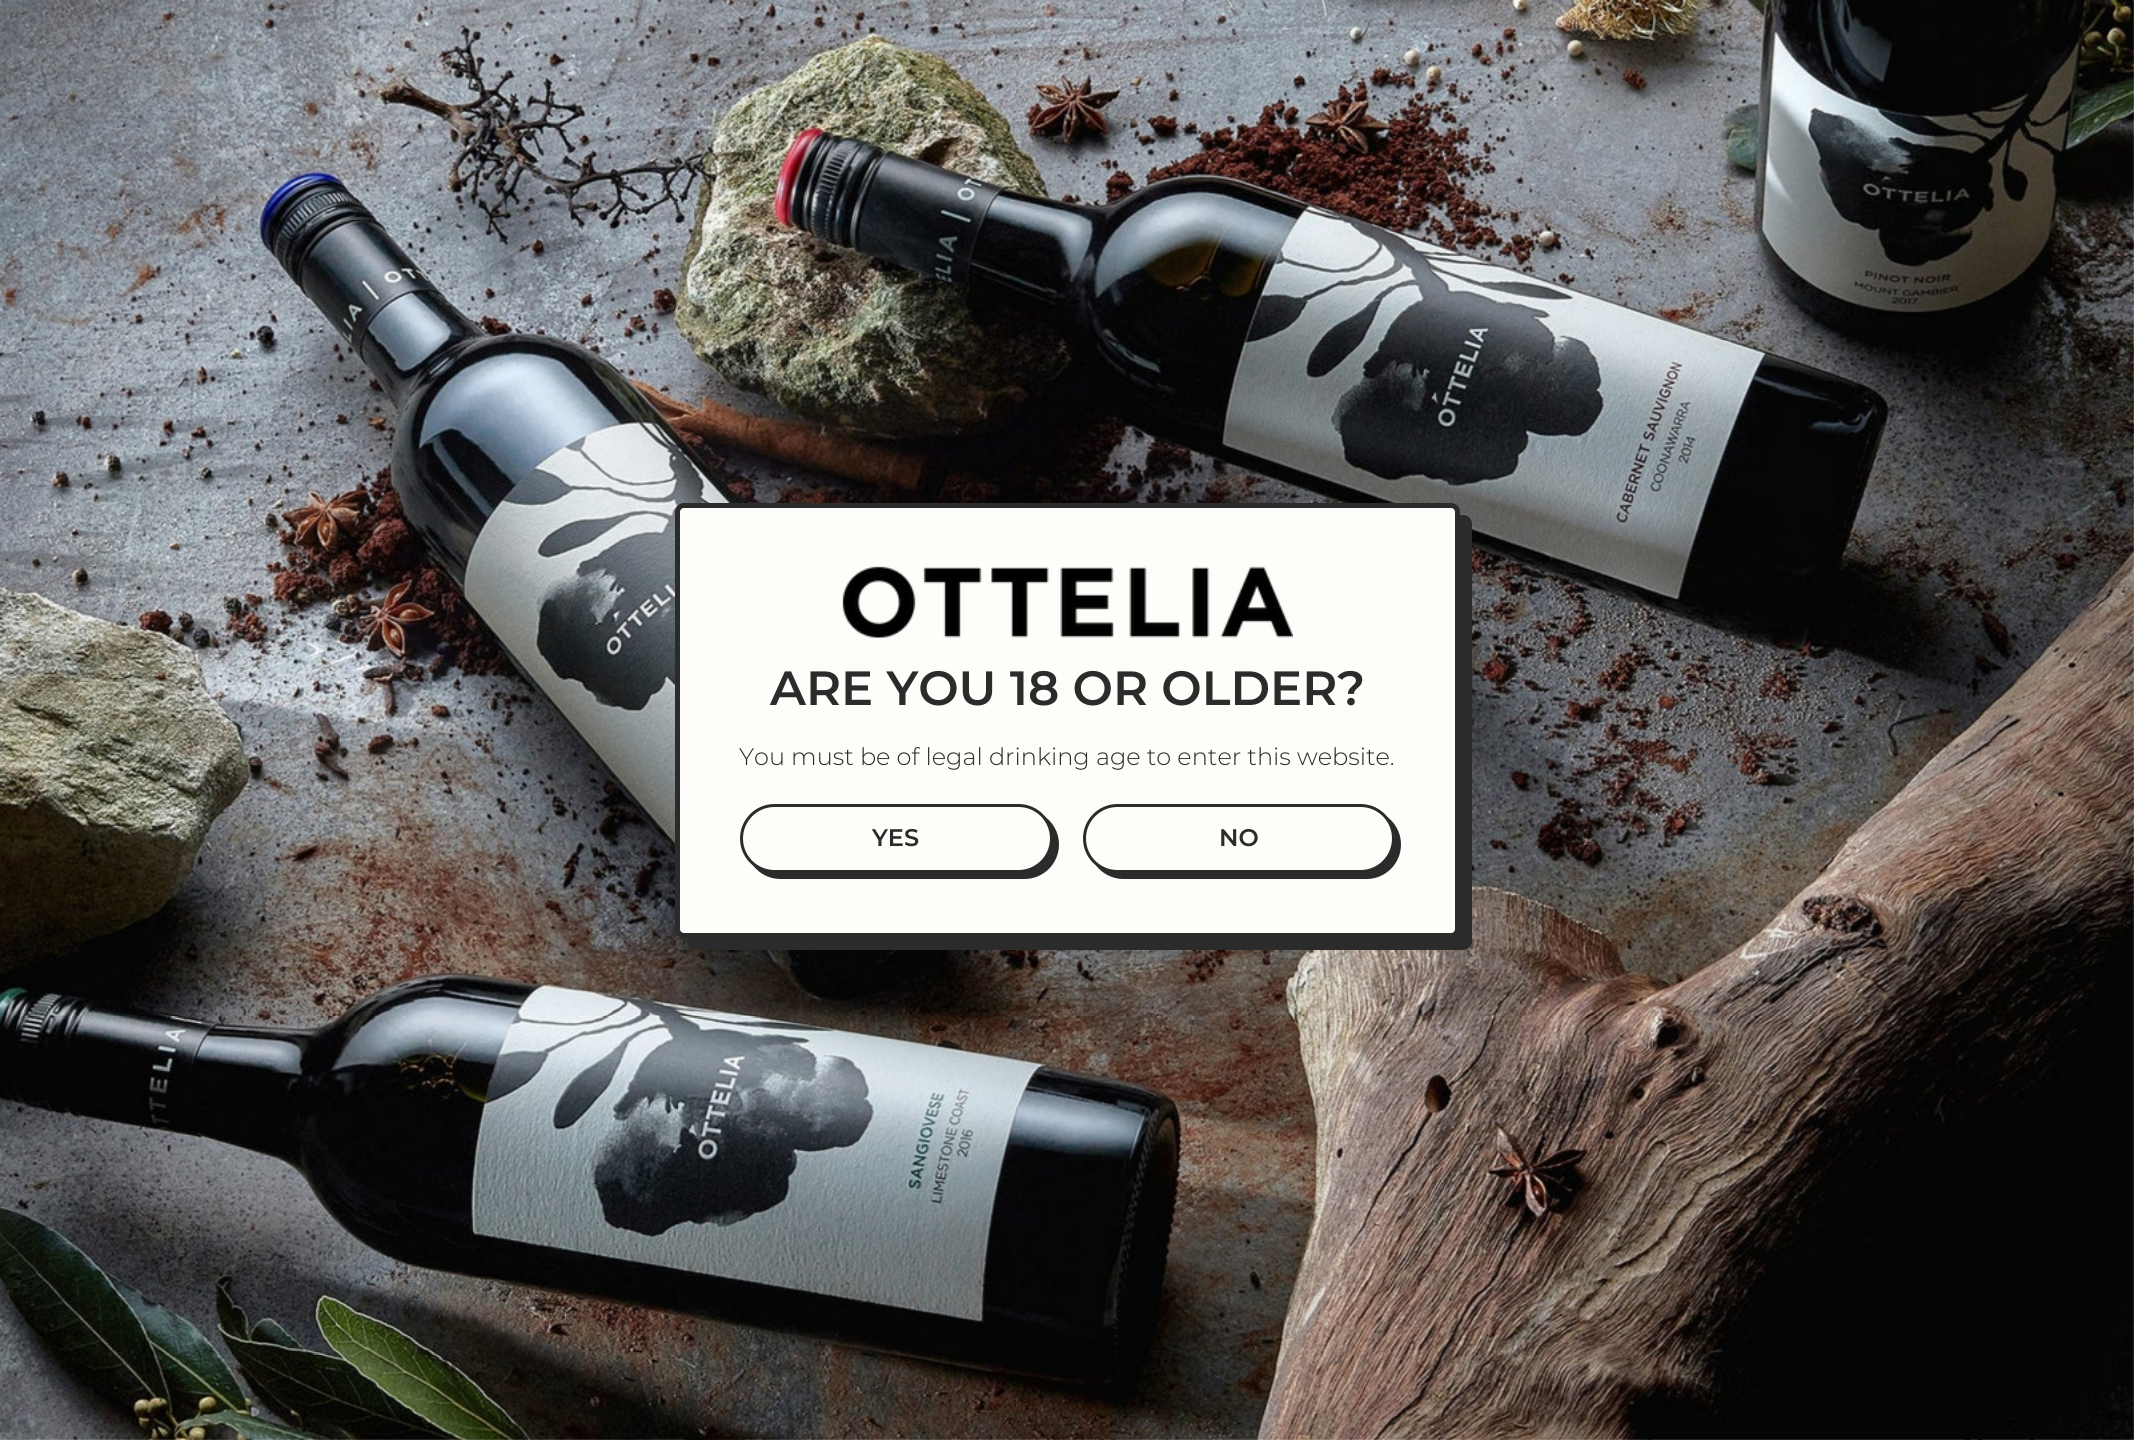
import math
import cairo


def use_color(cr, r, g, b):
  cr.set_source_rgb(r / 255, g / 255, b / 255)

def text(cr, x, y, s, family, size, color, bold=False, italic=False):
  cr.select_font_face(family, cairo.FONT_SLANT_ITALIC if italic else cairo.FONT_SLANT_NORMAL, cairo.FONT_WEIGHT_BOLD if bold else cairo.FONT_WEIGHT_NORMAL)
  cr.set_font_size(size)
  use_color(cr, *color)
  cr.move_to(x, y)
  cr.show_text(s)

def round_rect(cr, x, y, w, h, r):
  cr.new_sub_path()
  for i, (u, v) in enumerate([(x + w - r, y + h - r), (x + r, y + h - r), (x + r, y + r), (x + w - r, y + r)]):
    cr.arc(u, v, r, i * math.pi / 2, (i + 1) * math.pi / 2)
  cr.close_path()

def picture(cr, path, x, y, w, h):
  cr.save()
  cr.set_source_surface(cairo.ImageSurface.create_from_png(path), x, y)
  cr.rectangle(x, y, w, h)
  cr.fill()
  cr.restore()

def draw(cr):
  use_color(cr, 255, 255, 255)
  cr.paint()
  cr.rectangle(-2.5, 818.5, 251, 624)
  use_color(cr, 43, 43, 43)
  cr.set_line_width(5)
  cr.stroke()
  cr.rectangle(-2.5, 806.5, 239, 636)
  cr.stroke()
  picture(cr, "img_03.png", 0, 1439, 234, 1)
  cr.rectangle(313.5, 818.5, 800, 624)
  cr.stroke()
  cr.rectangle(301.5, 806.5, 800, 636)
  cr.stroke()
  picture(cr, "img_04.png", 303, 1439, 797, 1)
  cr.rectangle(1178.5, 818.5, 801, 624)
  cr.stroke()
  cr.rectangle(1166.5, 806.5, 801, 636)
  cr.stroke()
  picture(cr, "img_05.png", 1168, 1439, 797, 1)
  cr.rectangle(2032.5, 806.5, 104, 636)
  cr.stroke()
  picture(cr, "img_06.png", 2034, 808, 100, 632)
  picture(cr, "img_01.png", 0, 0, 2134, 1440)
  round_rect(cr, 689.5, 517.5, 780, 430, 6.5)
  cr.fill_preserve()
  cr.stroke()
  use_color(cr, 253, 253, 250)
  round_rect(cr, 677.5, 505.5, 780, 430, 6.5)
  cr.fill_preserve()
  use_color(cr, 43, 43, 43)
  cr.stroke()
  picture(cr, "img_02.png", 842, 566, 451, 72)
  round_rect(cr, 747.5, 811.5, 310, 66, 33)
  cr.fill_preserve()
  cr.set_line_width(3)
  cr.stroke()
  use_color(cr, 253, 253, 250)
  round_rect(cr, 741.5, 805.5, 310, 66, 33)
  cr.fill_preserve()
  use_color(cr, 43, 43, 43)
  cr.stroke()
  round_rect(cr, 1090.5, 811.5, 309, 66, 33)
  cr.fill_preserve()
  cr.stroke()
  use_color(cr, 253, 253, 250)
  round_rect(cr, 1084.5, 805.5, 309, 66, 33)
  cr.fill_preserve()
  use_color(cr, 43, 43, 43)
  cr.stroke()
  text(cr, 770, 705, "ARE YOU 18 OR OLDER?", "Montserrat SemiBold", 48, (43, 43, 43))
  text(cr, 739, 765, "You must be of legal drinking age to enter this website.", "Montserrat Light", 24, (43, 43, 43))
  text(cr, 872, 846, "YES", "Montserrat SemiBold", 24, (43, 43, 43))
  text(cr, 1219, 846, "NO", "Montserrat SemiBold", 24, (43, 43, 43))


surface = cairo.ImageSurface(cairo.FORMAT_RGB24, 2134, 1440)
cr = cairo.Context(surface)
options = cairo.FontOptions()
options.set_hint_metrics(cairo.HINT_METRICS_OFF)
options.set_hint_style(cairo.HINT_STYLE_NONE)
cr.set_font_options(options)
cr.set_miter_limit(4)
draw(cr)
surface.write_to_png("out.png")
